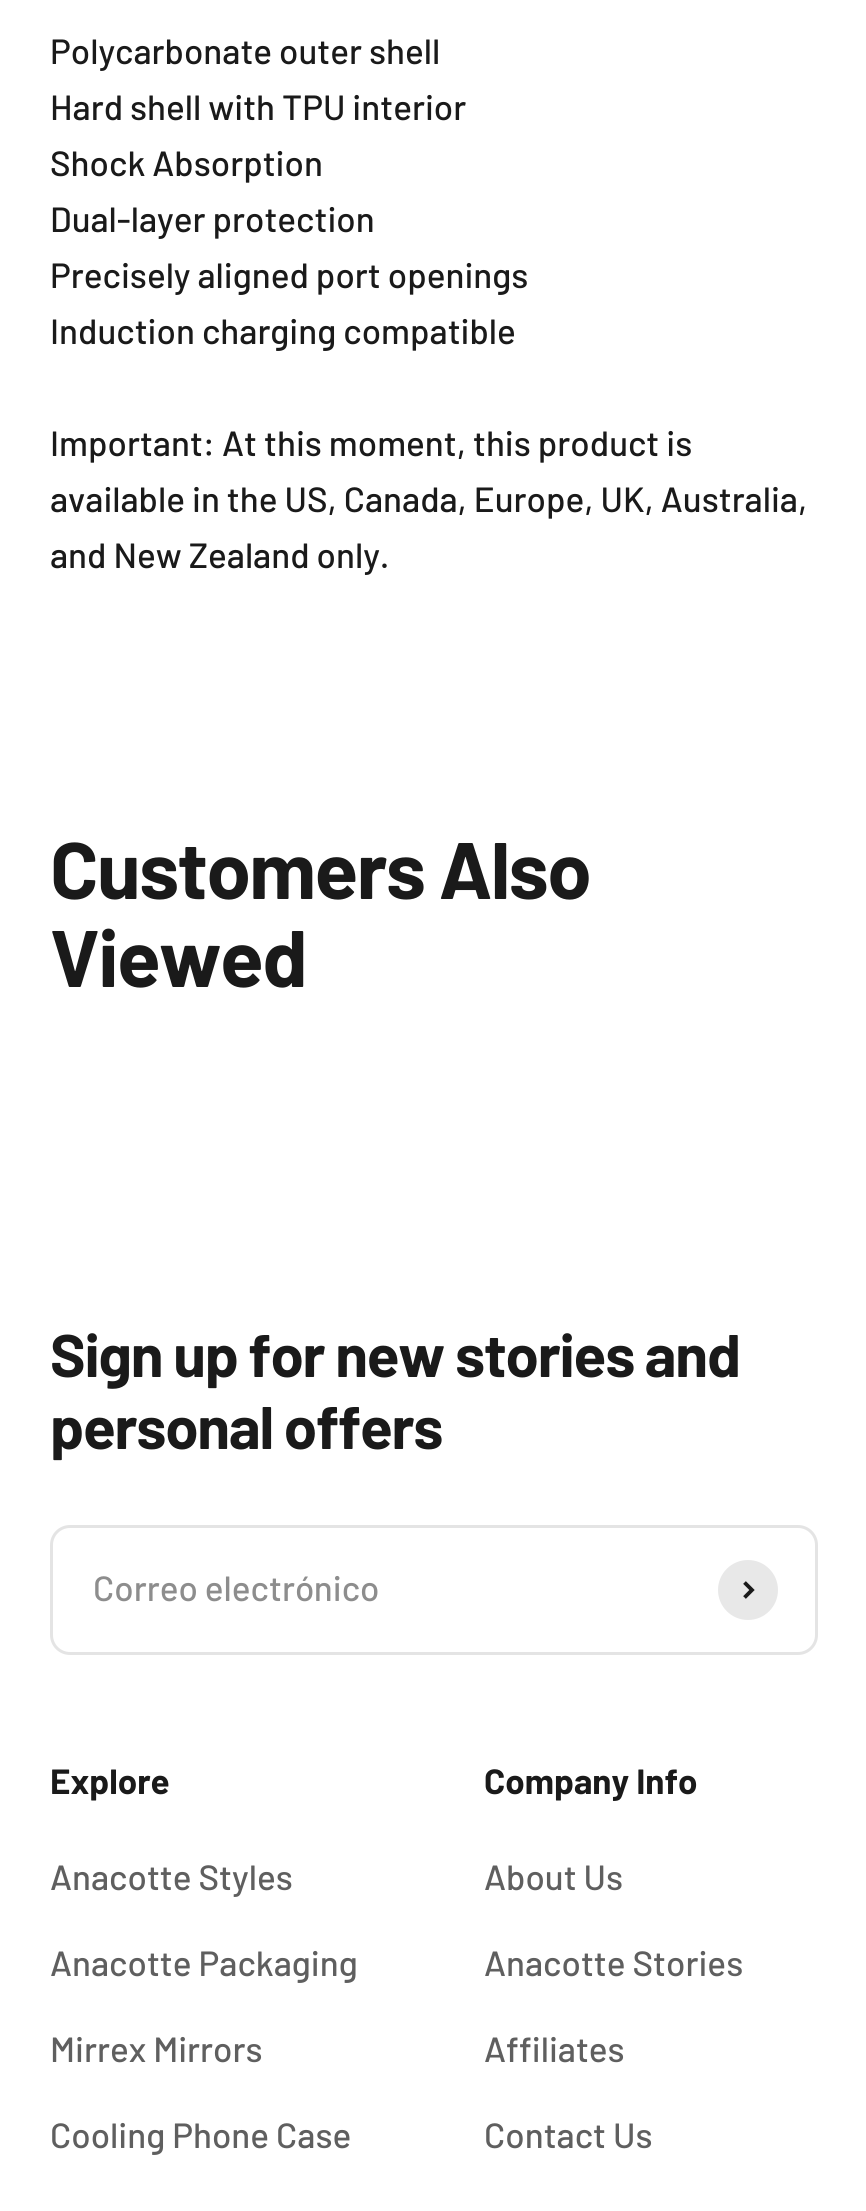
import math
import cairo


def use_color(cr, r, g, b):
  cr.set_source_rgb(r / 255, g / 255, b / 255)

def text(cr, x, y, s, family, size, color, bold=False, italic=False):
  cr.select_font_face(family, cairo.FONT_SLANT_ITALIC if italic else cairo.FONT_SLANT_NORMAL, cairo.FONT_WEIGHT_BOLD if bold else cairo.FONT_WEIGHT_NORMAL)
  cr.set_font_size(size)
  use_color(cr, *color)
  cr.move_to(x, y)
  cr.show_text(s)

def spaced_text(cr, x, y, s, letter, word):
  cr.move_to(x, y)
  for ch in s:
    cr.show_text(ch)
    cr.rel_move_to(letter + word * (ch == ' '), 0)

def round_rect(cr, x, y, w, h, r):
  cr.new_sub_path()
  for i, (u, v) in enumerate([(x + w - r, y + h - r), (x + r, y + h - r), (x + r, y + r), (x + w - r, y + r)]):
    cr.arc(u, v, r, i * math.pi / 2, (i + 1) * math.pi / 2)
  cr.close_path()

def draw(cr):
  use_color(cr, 255, 255, 255)
  cr.paint()
  round_rect(cr, 51.5, 1526.5, 765, 127, 18.5)
  use_color(cr, 228, 228, 228)
  cr.set_line_width(3)
  cr.stroke()
  use_color(cr, 232, 232, 232)
  cr.arc(748, 1590, 30, 0, 2 * math.pi)
  cr.fill()
  cr.new_path()
  cr.move_to(744.5, 1597.5)
  cr.line_to(752, 1590)
  cr.line_to(744.5, 1582.5)
  use_color(cr, 26, 26, 26)
  cr.set_line_width(3.8)
  cr.stroke()
  text(cr, 50, 64, "Polycarbonate outer shell", "Barlow Medium", 35, (26, 26, 26))
  text(cr, 50, 120, "Hard shell with TPU interior", "Barlow Medium", 35, (26, 26, 26))
  text(cr, 50, 176, "Shock Absorption", "Barlow Medium", 35, (26, 26, 26))
  text(cr, 50, 232, "Dual-layer protection", "Barlow Medium", 35, (26, 26, 26))
  text(cr, 50, 288, "Precisely aligned port openings", "Barlow Medium", 35, (26, 26, 26))
  text(cr, 50, 344, "Induction charging compatible", "Barlow Medium", 35, (26, 26, 26))
  text(cr, 50, 456, "Important: At this moment, this product is", "Barlow Medium", 35, (26, 26, 26))
  text(cr, 50, 512, "available in the US, Canada, Europe, UK, Australia,", "Barlow Medium", 35, (26, 26, 26))
  text(cr, 50, 568, "and New Zealand only.", "Barlow Medium", 35, (26, 26, 26))
  cr.select_font_face("Barlow", cairo.FONT_SLANT_NORMAL, cairo.FONT_WEIGHT_BOLD)
  cr.set_font_size(80)
  spaced_text(cr, 50, 899, "Customers Also", -1.6, 0)
  spaced_text(cr, 50, 987, "Viewed", -1.6, 0)
  cr.set_font_size(60)
  spaced_text(cr, 50, 1377, "Sign up for new stories and", -1.2, 0)
  spaced_text(cr, 50, 1449, "personal offers", -1.2, 0)
  text(cr, 93, 1601, "Correo electrónico", "Barlow Medium", 35, (141, 141, 141))
  text(cr, 50, 1794, "Explore", "Barlow", 35, (26, 26, 26), bold=True)
  text(cr, 50, 1890, "Anacotte Styles", "Barlow Medium", 35, (95, 95, 95))
  text(cr, 50, 1976, "Anacotte Packaging", "Barlow Medium", 35, (95, 95, 95))
  text(cr, 50, 2062, "Mirrex Mirrors", "Barlow Medium", 35, (95, 95, 95))
  text(cr, 50, 2148, "Cooling Phone Case", "Barlow Medium", 35, (95, 95, 95))
  text(cr, 484, 1794, "Company Info", "Barlow", 35, (26, 26, 26), bold=True)
  text(cr, 484, 1890, "About Us", "Barlow Medium", 35, (95, 95, 95))
  text(cr, 484, 1976, "Anacotte Stories", "Barlow Medium", 35, (95, 95, 95))
  text(cr, 484, 2062, "Affiliates", "Barlow Medium", 35, (95, 95, 95))
  text(cr, 484, 2148, "Contact Us", "Barlow Medium", 35, (95, 95, 95))


surface = cairo.ImageSurface(cairo.FORMAT_RGB24, 866, 2211)
cr = cairo.Context(surface)
options = cairo.FontOptions()
options.set_hint_metrics(cairo.HINT_METRICS_OFF)
options.set_hint_style(cairo.HINT_STYLE_NONE)
cr.set_font_options(options)
cr.set_miter_limit(4)
draw(cr)
surface.write_to_png("out.png")
